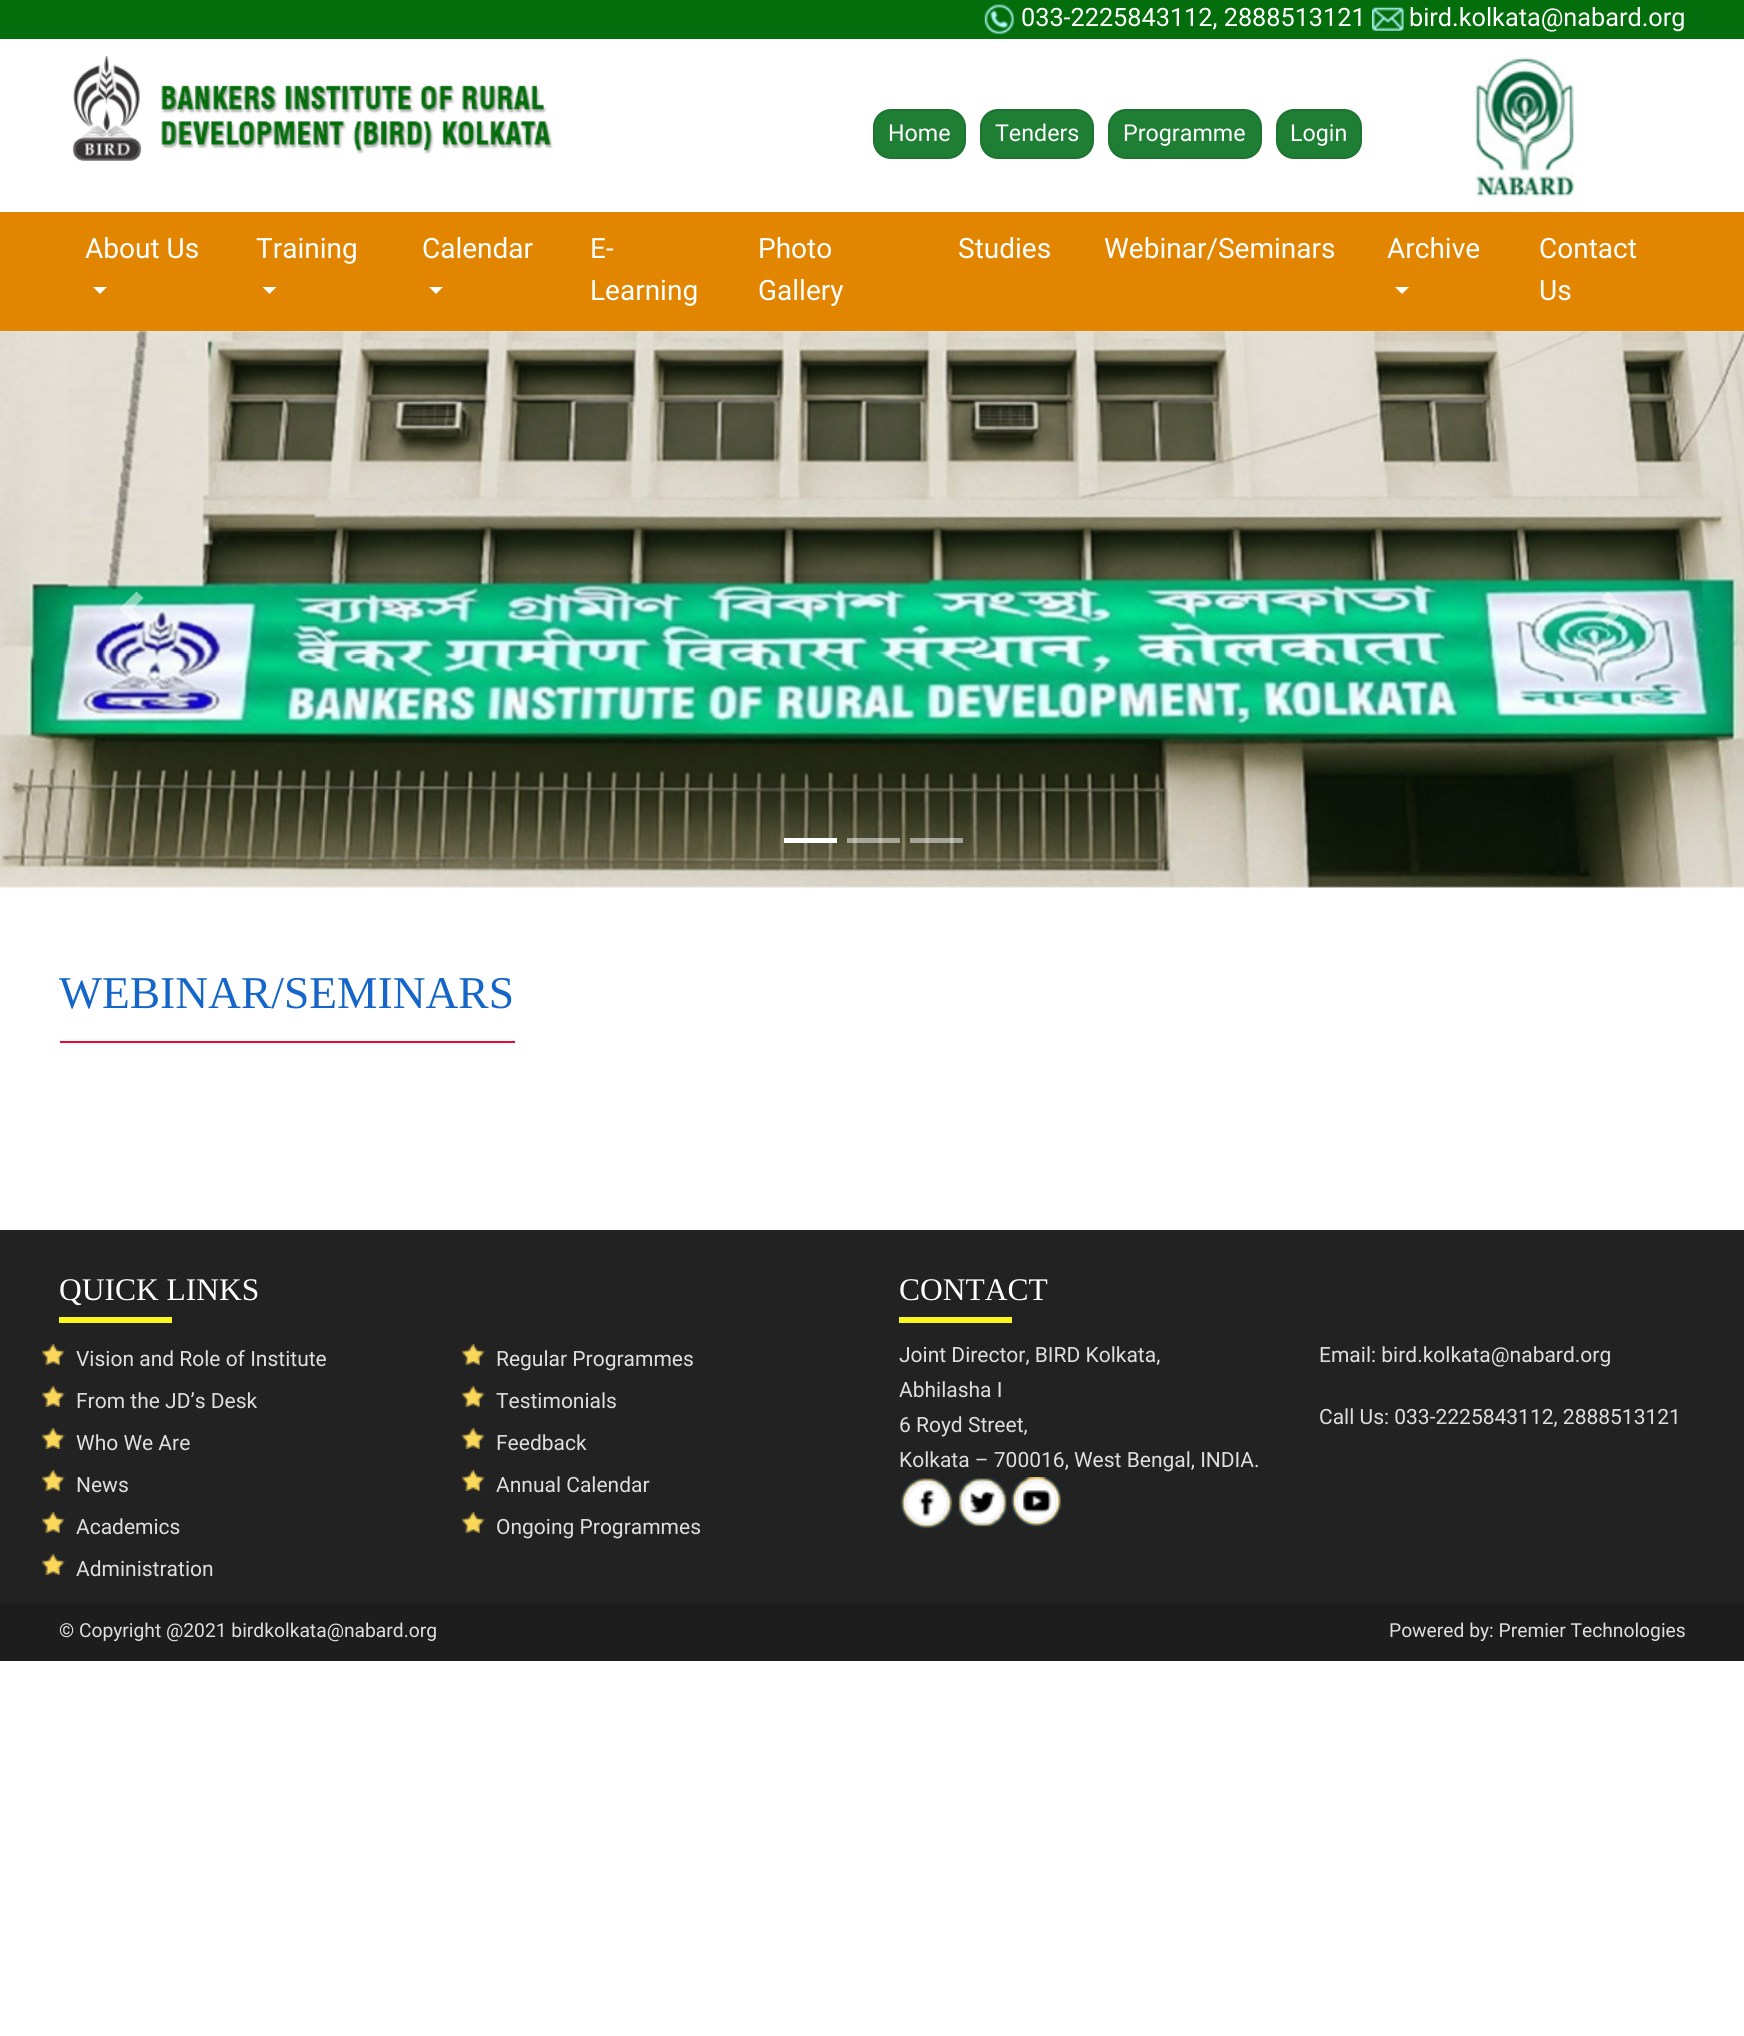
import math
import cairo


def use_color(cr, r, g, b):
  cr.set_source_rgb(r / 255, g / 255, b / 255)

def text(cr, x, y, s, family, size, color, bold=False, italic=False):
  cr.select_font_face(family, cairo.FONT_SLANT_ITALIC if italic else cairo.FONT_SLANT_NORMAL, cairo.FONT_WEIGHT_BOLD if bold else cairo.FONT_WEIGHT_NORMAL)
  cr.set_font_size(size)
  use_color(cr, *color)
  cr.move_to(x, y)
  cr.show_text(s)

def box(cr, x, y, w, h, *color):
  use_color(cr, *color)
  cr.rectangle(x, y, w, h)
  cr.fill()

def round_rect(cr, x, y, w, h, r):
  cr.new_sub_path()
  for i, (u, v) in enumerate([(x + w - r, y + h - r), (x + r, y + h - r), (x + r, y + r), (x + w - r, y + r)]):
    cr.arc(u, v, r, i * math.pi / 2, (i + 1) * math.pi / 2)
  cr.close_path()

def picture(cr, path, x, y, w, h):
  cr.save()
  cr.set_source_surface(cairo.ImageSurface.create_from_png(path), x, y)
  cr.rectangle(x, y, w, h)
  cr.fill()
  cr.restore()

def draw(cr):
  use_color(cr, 255, 255, 255)
  cr.paint()
  box(cr, 0, 0, 1744, 39, 3, 110, 11)
  picture(cr, "img_01.png", 984, 4, 30, 30)
  picture(cr, "img_02.png", 1372, 7, 32, 24)
  picture(cr, "img_03.png", 72, 56, 481, 105)
  use_color(cr, 30, 126, 52)
  round_rect(cr, 874, 110, 91, 48, 17)
  cr.fill_preserve()
  use_color(cr, 28, 116, 48)
  cr.stroke()
  use_color(cr, 30, 126, 52)
  round_rect(cr, 981, 110, 112, 48, 17)
  cr.fill_preserve()
  use_color(cr, 28, 116, 48)
  cr.stroke()
  use_color(cr, 30, 126, 52)
  round_rect(cr, 1109, 110, 152, 48, 17)
  cr.fill_preserve()
  use_color(cr, 28, 116, 48)
  cr.stroke()
  use_color(cr, 30, 126, 52)
  round_rect(cr, 1277, 110, 84, 48, 17)
  cr.fill_preserve()
  use_color(cr, 28, 116, 48)
  cr.stroke()
  picture(cr, "img_04.png", 1475, 56, 99, 141)
  box(cr, 0, 212, 1744, 119, 226, 133, 1)
  use_color(cr, 255, 255, 255)
  cr.new_path()
  cr.move_to(93, 287)
  cr.line_to(107, 287)
  cr.line_to(100, 294)
  cr.close_path()
  cr.fill()
  cr.new_path()
  cr.move_to(262.5, 287)
  cr.line_to(276.5, 287)
  cr.line_to(269.5, 294)
  cr.close_path()
  cr.fill()
  cr.new_path()
  cr.move_to(429, 287)
  cr.line_to(443, 287)
  cr.line_to(436, 294)
  cr.close_path()
  cr.fill()
  cr.new_path()
  cr.move_to(1395, 287)
  cr.line_to(1409, 287)
  cr.line_to(1402, 294)
  cr.close_path()
  cr.fill()
  picture(cr, "img_05.png", 0, 331, 1744, 557)
  cr.set_source_rgba(1, 1, 1, 0.5)
  cr.new_path()
  cr.move_to(136.5, 591.5)
  cr.line_to(119, 609)
  cr.line_to(136.5, 626.5)
  cr.line_to(143.5, 620)
  cr.line_to(132.5, 609)
  cr.line_to(143.5, 598)
  cr.close_path()
  cr.fill()
  cr.new_path()
  cr.move_to(1608, 591.5)
  cr.line_to(1601.5, 598)
  cr.line_to(1612.5, 609)
  cr.line_to(1601.5, 620)
  cr.line_to(1608, 626.5)
  cr.line_to(1625.5, 609)
  cr.close_path()
  cr.fill()
  box(cr, 784, 838, 53, 5, 255, 255, 255)
  cr.set_source_rgba(1, 1, 1, 0.5)
  cr.rectangle(847, 838, 53, 5)
  cr.fill()
  cr.rectangle(910, 838, 53, 5)
  cr.fill()
  box(cr, 60, 1041, 455, 2, 236, 6, 49)
  box(cr, 0, 1230, 1744, 373, 34, 34, 34)
  box(cr, 59, 1317, 113, 6, 249, 246, 29)
  picture(cr, "img_06.png", 42, 1344, 23, 21)
  picture(cr, "img_06.png", 42, 1386, 23, 21)
  picture(cr, "img_06.png", 42, 1428, 23, 21)
  picture(cr, "img_06.png", 42, 1470, 23, 21)
  picture(cr, "img_06.png", 42, 1512, 23, 21)
  picture(cr, "img_06.png", 42, 1554, 23, 21)
  picture(cr, "img_06.png", 462, 1344, 23, 21)
  picture(cr, "img_06.png", 462, 1386, 23, 21)
  picture(cr, "img_06.png", 462, 1428, 23, 21)
  picture(cr, "img_06.png", 462, 1470, 23, 21)
  picture(cr, "img_06.png", 462, 1512, 23, 21)
  box(cr, 899, 1317, 113, 6, 249, 246, 29)
  picture(cr, "img_07.png", 901, 1478, 52, 51)
  picture(cr, "img_08.png", 958, 1478, 49, 49)
  picture(cr, "img_09.png", 1011, 1477, 50, 50)
  box(cr, 0, 1603, 1744, 58, 30, 29, 29)
  text(cr, 1021, 26, "033-2225843112, 2888513121", "Roboto", 25.25, (255, 255, 255))
  text(cr, 1409, 26, "bird.kolkata@nabard.org", "Roboto", 25.25, (255, 255, 255))
  text(cr, 888, 141, "Home", "Roboto", 23.25, (255, 255, 255))
  text(cr, 995, 141, "Tenders", "Roboto", 23.25, (255, 255, 255))
  text(cr, 1123, 141, "Programme", "Roboto", 23.25, (255, 255, 255))
  text(cr, 1290, 141, "Login", "Roboto", 23.25, (255, 255, 255))
  text(cr, 85, 258, "About Us", "Roboto", 28, (255, 255, 255))
  text(cr, 256, 258, "Training", "Roboto", 28, (255, 255, 255))
  text(cr, 422, 258, "Calendar", "Roboto", 28, (255, 255, 255))
  text(cr, 590, 258, "E-", "Roboto", 28, (255, 255, 255))
  text(cr, 590, 300, "Learning", "Roboto", 28, (255, 255, 255))
  text(cr, 758, 258, "Photo", "Roboto", 28, (255, 255, 255))
  text(cr, 758, 300, "Gallery", "Roboto", 28, (255, 255, 255))
  text(cr, 958, 258, "Studies", "Roboto", 28, (255, 255, 255))
  text(cr, 1104, 258, "Webinar/Seminars", "Roboto", 28, (255, 255, 255))
  text(cr, 1387, 258, "Archive", "Roboto", 28, (255, 255, 255))
  text(cr, 1539, 258, "Contact", "Roboto", 28, (255, 255, 255))
  text(cr, 1539, 300, "Us", "Roboto", 28, (255, 255, 255))
  text(cr, 59, 1008, "WEBINAR/SEMINARS", "Liberation Serif", 45.5, (21, 102, 200))
  text(cr, 59, 1300, "QUICK LINKS", "Liberation Serif", 31.5, (255, 255, 255))
  text(cr, 76, 1366, "Vision and Role of Institute", "Roboto", 21, (223, 223, 223))
  text(cr, 76, 1408, "From the JD’s Desk", "Roboto", 21, (223, 223, 223))
  text(cr, 76, 1450, "Who We Are", "Roboto", 21, (223, 223, 223))
  text(cr, 76, 1492, "News", "Roboto", 21, (223, 223, 223))
  text(cr, 76, 1534, "Academics", "Roboto", 21, (223, 223, 223))
  text(cr, 76, 1576, "Administration", "Roboto", 21, (223, 223, 223))
  text(cr, 496, 1366, "Regular Programmes", "Roboto", 21, (223, 223, 223))
  text(cr, 496, 1408, "Testimonials", "Roboto", 21, (223, 223, 223))
  text(cr, 496, 1450, "Feedback", "Roboto", 21, (223, 223, 223))
  text(cr, 496, 1492, "Annual Calendar", "Roboto", 21, (223, 223, 223))
  text(cr, 496, 1534, "Ongoing Programmes", "Roboto", 21, (223, 223, 223))
  text(cr, 899, 1300, "CONTACT", "Liberation Serif", 31.5, (255, 255, 255))
  text(cr, 899, 1362, "Joint Director, BIRD Kolkata,", "Roboto", 21, (223, 223, 223))
  text(cr, 899, 1397, "Abhilasha I", "Roboto", 21, (223, 223, 223))
  text(cr, 899, 1432, "6 Royd Street,", "Roboto", 21, (223, 223, 223))
  text(cr, 899, 1467, "Kolkata – 700016, West Bengal, INDIA.", "Roboto", 21, (223, 223, 223))
  text(cr, 1319, 1362, "Email: bird.kolkata@nabard.org", "Roboto", 21, (223, 223, 223))
  text(cr, 1319, 1424, "Call Us: 033-2225843112, 2888513121", "Roboto", 21, (223, 223, 223))
  text(cr, 59, 1637, "© Copyright @2021 birdkolkata@nabard.org", "Roboto", 19.25, (223, 223, 223))
  text(cr, 1389, 1637, "Powered by: Premier Technologies", "Roboto", 19.25, (223, 223, 223))


surface = cairo.ImageSurface(cairo.FORMAT_RGB24, 1744, 2036)
cr = cairo.Context(surface)
options = cairo.FontOptions()
options.set_hint_metrics(cairo.HINT_METRICS_OFF)
options.set_hint_style(cairo.HINT_STYLE_NONE)
cr.set_font_options(options)
cr.set_miter_limit(4)
draw(cr)
surface.write_to_png("out.png")
